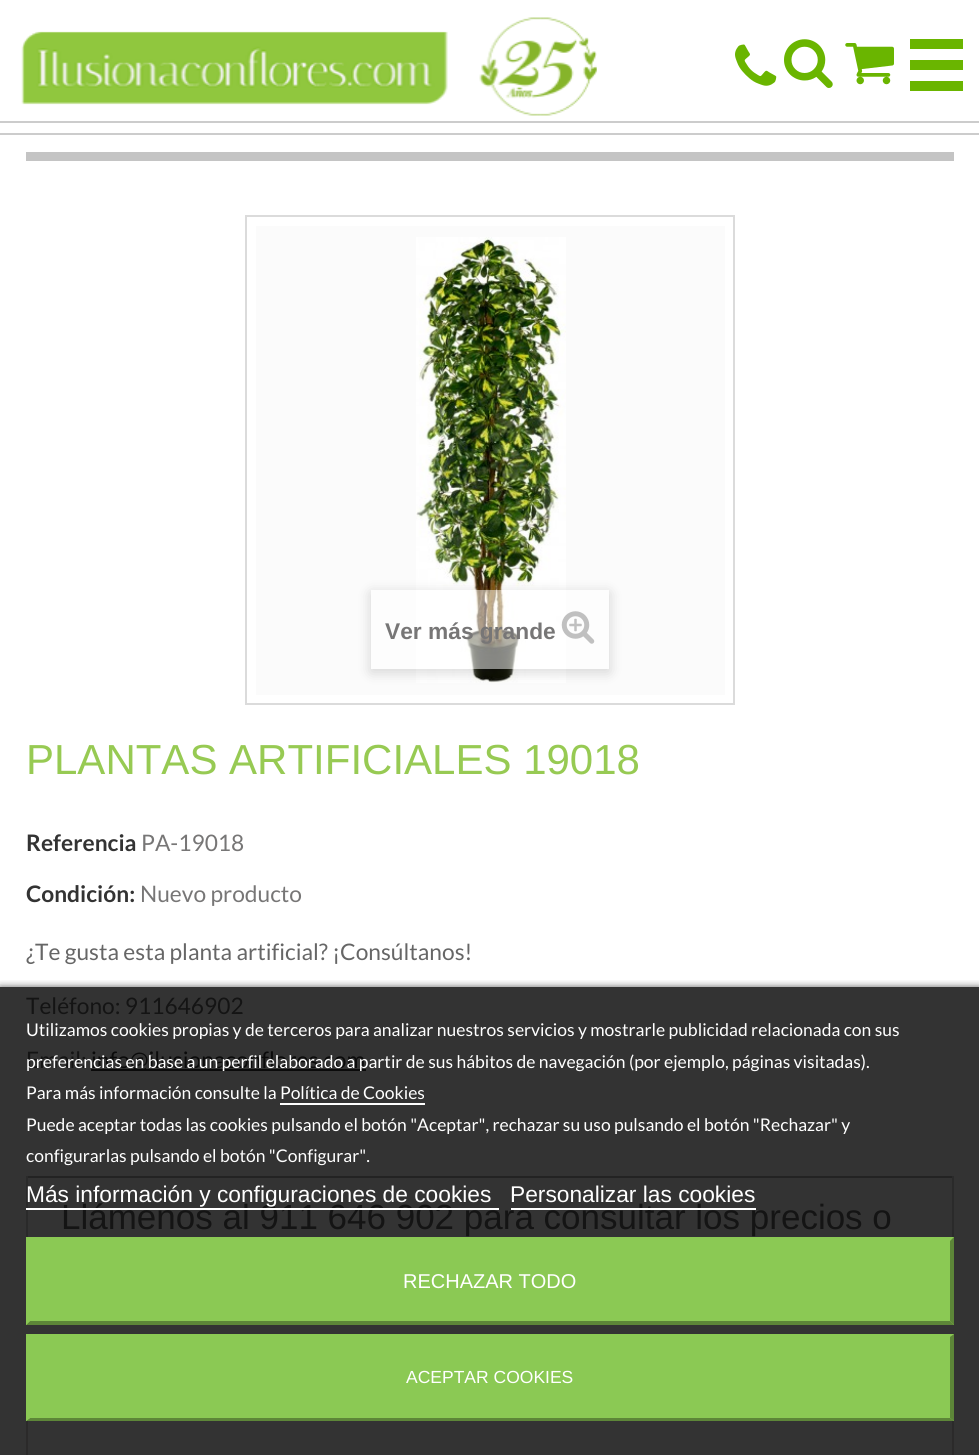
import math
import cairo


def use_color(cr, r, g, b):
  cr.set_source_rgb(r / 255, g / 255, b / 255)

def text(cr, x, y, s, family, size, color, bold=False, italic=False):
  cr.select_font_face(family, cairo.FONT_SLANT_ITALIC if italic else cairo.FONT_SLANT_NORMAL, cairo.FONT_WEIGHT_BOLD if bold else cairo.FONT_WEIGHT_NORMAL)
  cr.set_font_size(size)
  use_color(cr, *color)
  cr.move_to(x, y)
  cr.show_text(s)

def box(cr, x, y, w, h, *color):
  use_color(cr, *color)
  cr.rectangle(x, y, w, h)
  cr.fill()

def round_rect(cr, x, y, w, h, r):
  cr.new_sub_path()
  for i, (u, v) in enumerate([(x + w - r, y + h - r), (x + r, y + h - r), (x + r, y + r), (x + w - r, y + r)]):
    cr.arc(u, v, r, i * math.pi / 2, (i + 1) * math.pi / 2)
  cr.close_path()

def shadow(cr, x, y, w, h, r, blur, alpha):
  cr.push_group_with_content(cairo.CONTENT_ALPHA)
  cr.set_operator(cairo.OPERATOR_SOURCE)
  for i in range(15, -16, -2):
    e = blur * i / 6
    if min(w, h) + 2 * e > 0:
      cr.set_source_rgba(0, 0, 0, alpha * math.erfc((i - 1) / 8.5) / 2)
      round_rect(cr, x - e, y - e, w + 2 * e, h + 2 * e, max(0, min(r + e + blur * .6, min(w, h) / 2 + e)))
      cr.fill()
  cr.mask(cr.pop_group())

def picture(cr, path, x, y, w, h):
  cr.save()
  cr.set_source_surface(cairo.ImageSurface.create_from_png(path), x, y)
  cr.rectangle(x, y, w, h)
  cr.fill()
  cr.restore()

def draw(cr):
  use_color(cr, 255, 255, 255)
  cr.paint()
  box(cr, 0, 987, 979, 468, 51, 51, 51)
  box(cr, 26, 152, 928, 9, 196, 196, 196)
  cr.rectangle(246, 216, 488, 488)
  use_color(cr, 219, 219, 219)
  cr.stroke()
  box(cr, 256, 226, 469, 469, 251, 251, 251)
  picture(cr, "img_01.png", 416, 237, 150, 446)
  cr.save()
  cr.set_fill_rule(cairo.FILL_RULE_EVEN_ODD)
  cr.new_path()
  cr.move_to(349, 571)
  cr.line_to(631, 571)
  cr.line_to(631, 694)
  cr.line_to(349, 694)
  cr.close_path()
  cr.move_to(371, 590)
  cr.line_to(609, 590)
  cr.line_to(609, 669)
  cr.line_to(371, 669)
  cr.close_path()
  cr.clip()
  use_color(cr, 0, 0, 0)
  shadow(cr, 371, 593, 238, 79, 0, 7, 0.16)
  cr.restore()
  cr.set_source_rgba(1, 1, 1, 0.5)
  cr.rectangle(371, 590, 238, 79)
  cr.fill()
  picture(cr, "img_02.png", 561, 611, 34, 33)
  box(cr, 91, 1069, 275, 2, 10, 10, 10)
  box(cr, 26, 1176, 928, 2, 35, 35, 35)
  box(cr, 952, 1176, 2, 61, 42, 42, 42)
  box(cr, 26, 1176, 2, 61, 42, 42, 42)
  box(cr, 952, 1421, 2, 34, 43, 42, 42)
  box(cr, 26, 1421, 2, 34, 43, 42, 42)
  box(cr, 0, 121, 979, 2, 204, 204, 204)
  picture(cr, "img_03.png", 21, 17, 576, 99)
  picture(cr, "img_04.png", 735, 44, 42, 42)
  picture(cr, "img_05.png", 784, 39, 49, 49)
  picture(cr, "img_06.png", 845, 43, 49, 42)
  box(cr, 910, 81, 53, 10, 106, 181, 0)
  box(cr, 910, 60, 53, 10, 106, 181, 0)
  box(cr, 910, 39, 53, 10, 106, 181, 0)
  box(cr, 0, 133, 979, 2, 204, 204, 204)
  cr.save()
  cr.rectangle(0, 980, 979, 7)
  cr.clip()
  use_color(cr, 0, 0, 0)
  shadow(cr, 0, 989, 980, 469, 0, 4.5, 1)
  cr.restore()
  box(cr, 280, 1103, 145, 2, 255, 255, 255)
  box(cr, 26, 1237, 928, 88, 139, 201, 84)
  use_color(cr, 93, 134, 56)
  cr.new_path()
  cr.move_to(954, 1237)
  cr.line_to(954, 1325)
  cr.line_to(950, 1321)
  cr.line_to(950, 1241)
  cr.close_path()
  cr.fill()
  cr.new_path()
  cr.move_to(954, 1325)
  cr.line_to(26, 1325)
  cr.line_to(30, 1321)
  cr.line_to(950, 1321)
  cr.close_path()
  cr.fill()
  use_color(cr, 139, 201, 84)
  cr.new_path()
  cr.move_to(26, 1325)
  cr.line_to(26, 1237)
  cr.line_to(30, 1241)
  cr.line_to(30, 1321)
  cr.close_path()
  cr.fill()
  box(cr, 26, 1334, 928, 87, 139, 201, 84)
  use_color(cr, 93, 134, 56)
  cr.new_path()
  cr.move_to(954, 1334)
  cr.line_to(954, 1421)
  cr.line_to(950, 1418)
  cr.line_to(950, 1337)
  cr.close_path()
  cr.fill()
  cr.new_path()
  cr.move_to(954, 1421)
  cr.line_to(26, 1421)
  cr.line_to(30, 1418)
  cr.line_to(950, 1418)
  cr.close_path()
  cr.fill()
  use_color(cr, 139, 201, 84)
  cr.new_path()
  cr.move_to(26, 1421)
  cr.line_to(26, 1334)
  cr.line_to(30, 1337)
  cr.line_to(30, 1418)
  cr.close_path()
  cr.fill()
  text(cr, 385, 639, "Ver más grande", "Liberation Sans", 22.75, (119, 118, 118), bold=True)
  text(cr, 26, 774, "PLANTAS ARTIFICIALES 19018", "Liberation Sans", 42, (151, 202, 83))
  text(cr, 26, 851, "Referencia", "Lato", 22.75, (51, 51, 51), bold=True)
  text(cr, 141, 851, "PA-19018", "Lato", 22.75, (119, 118, 118))
  text(cr, 26, 902, "Condición:", "Lato", 22.75, (51, 51, 51), bold=True)
  text(cr, 140, 902, "Nuevo producto", "Lato", 22.75, (119, 118, 118))
  text(cr, 26, 960, "¿Te gusta esta planta artificial? ¡Consúltanos!", "Lato", 22.75, (102, 102, 102))
  text(cr, 26, 1014, "Teléfono: 911646902", "Lato", 22.75, (20, 20, 20))
  text(cr, 26, 1068, "Email:", "Lato", 22.75, (20, 20, 20))
  text(cr, 91, 1068, "info@ilusionaconflores.com", "Lato", 22.75, (10, 10, 10))
  text(cr, 61, 1229, "Llámenos al 911 646 902 para consultar los precios o", "Liberation Sans", 35, (20, 20, 20))
  text(cr, 26, 1036, "Utilizamos cookies propias y de terceros para analizar nuestros servicios y mostrarle publicidad relacionada con sus", "Lato", 17.5, (255, 255, 255))
  text(cr, 26, 1068, "preferencias en base a un perfil elaborado a partir de sus hábitos de navegación (por ejemplo, páginas visitadas).", "Lato", 17.5, (255, 255, 255))
  text(cr, 26, 1099, "Para más información consulte la Política de Cookies", "Lato", 17.5, (255, 255, 255))
  text(cr, 26, 1131, "Puede aceptar todas las cookies pulsando el botón \"Aceptar\", rechazar su uso pulsando el botón \"Rechazar\" y", "Lato", 17.5, (255, 255, 255))
  text(cr, 26, 1162, "configurarlas pulsando el botón \"Configurar\".", "Lato", 17.5, (255, 255, 255))
  text(cr, 26, 1202, "Más información y configuraciones de cookies", "Liberation Sans", 22.75, (255, 255, 255))
  box(cr, 26, 1208, 473, 2, 255, 255, 255)
  text(cr, 510, 1202, "Personalizar las cookies", "Liberation Sans", 22.75, (255, 255, 255))
  box(cr, 511, 1208, 245, 2, 255, 255, 255)
  text(cr, 403, 1288, "RECHAZAR TODO", "Liberation Sans", 20, (255, 255, 255))
  text(cr, 406, 1383, "ACEPTAR COOKIES", "Liberation Sans", 17.5, (255, 255, 255))


surface = cairo.ImageSurface(cairo.FORMAT_RGB24, 979, 1455)
cr = cairo.Context(surface)
options = cairo.FontOptions()
options.set_hint_metrics(cairo.HINT_METRICS_OFF)
options.set_hint_style(cairo.HINT_STYLE_NONE)
cr.set_font_options(options)
cr.set_miter_limit(4)
draw(cr)
surface.write_to_png("out.png")
